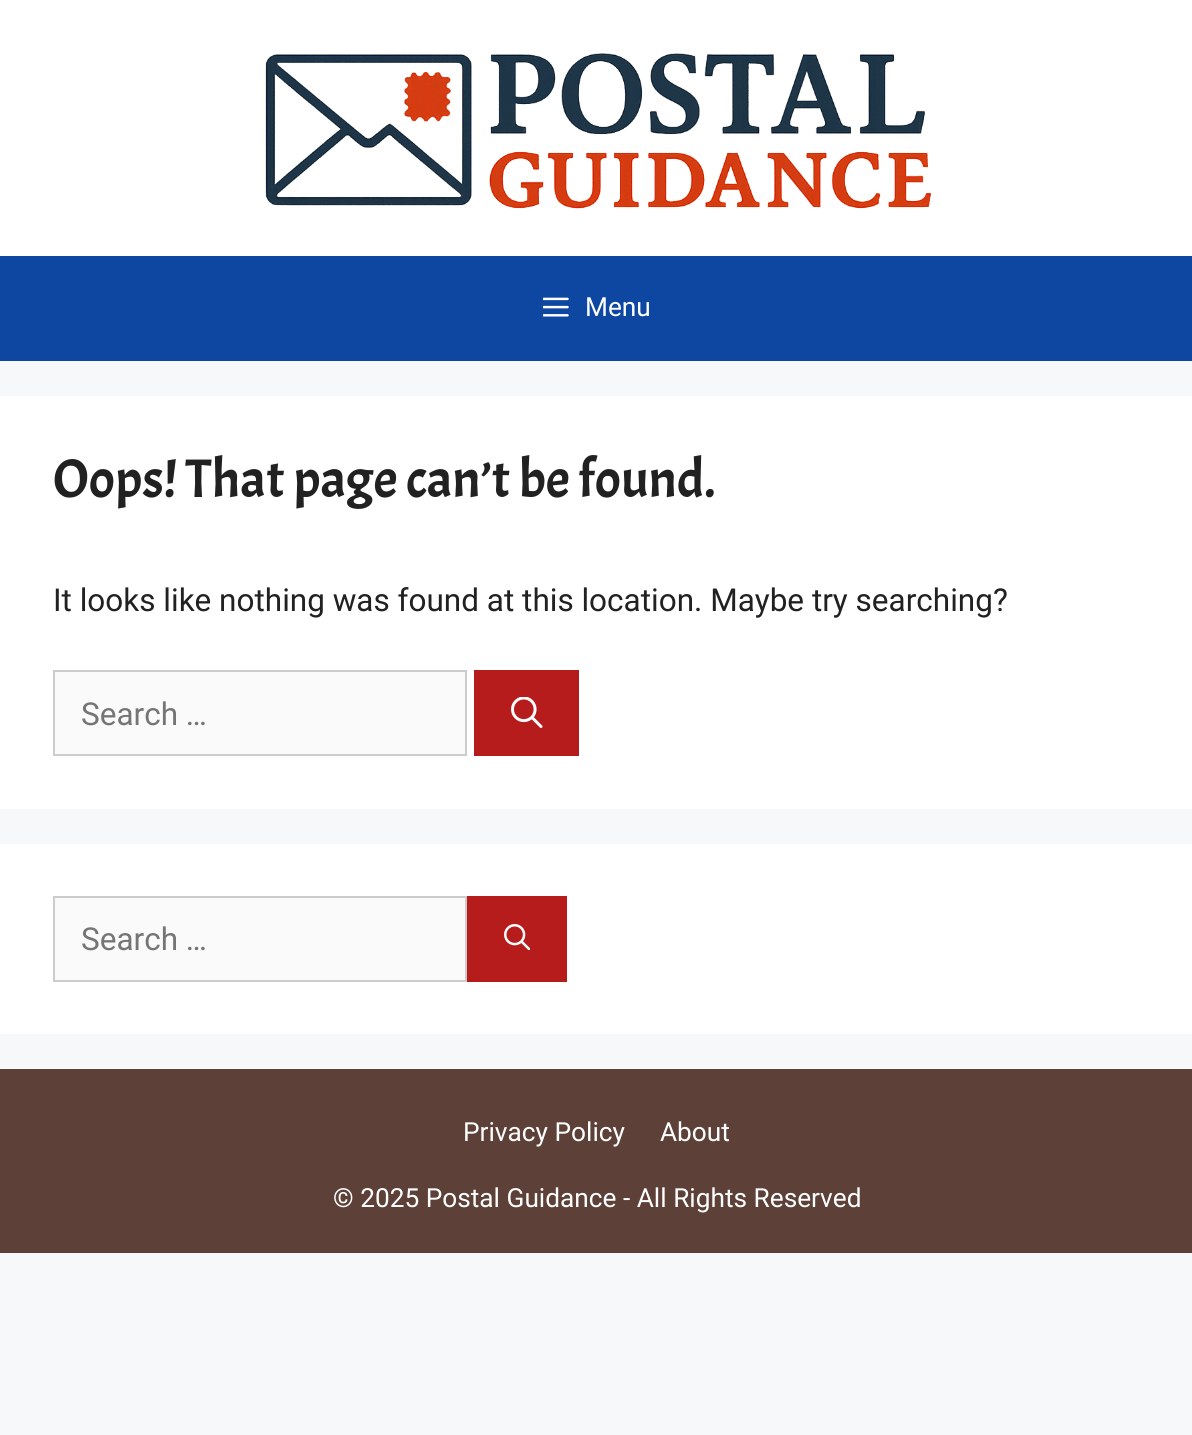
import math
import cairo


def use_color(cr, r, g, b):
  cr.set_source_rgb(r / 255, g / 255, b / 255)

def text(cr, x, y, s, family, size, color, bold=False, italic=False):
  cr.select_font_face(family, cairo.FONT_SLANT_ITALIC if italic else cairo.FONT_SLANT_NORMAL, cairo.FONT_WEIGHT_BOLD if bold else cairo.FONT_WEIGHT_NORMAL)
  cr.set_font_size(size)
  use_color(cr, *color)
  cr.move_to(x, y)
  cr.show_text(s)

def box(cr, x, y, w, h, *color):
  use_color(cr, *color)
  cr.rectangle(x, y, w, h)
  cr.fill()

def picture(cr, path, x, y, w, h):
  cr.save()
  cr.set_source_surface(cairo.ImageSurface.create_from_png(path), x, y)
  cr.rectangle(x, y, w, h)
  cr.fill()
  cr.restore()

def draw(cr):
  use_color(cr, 247, 248, 249)
  cr.paint()
  box(cr, 0, 0, 1192, 256, 255, 255, 255)
  picture(cr, "img_01.png", 265, 53, 667, 156)
  box(cr, 0, 256, 1192, 105, 13, 71, 161)
  picture(cr, "img_02.png", 543, 297, 26, 20)
  box(cr, 0, 396, 1192, 413, 255, 255, 255)
  use_color(cr, 250, 250, 250)
  cr.rectangle(54, 671, 412, 84)
  cr.fill_preserve()
  use_color(cr, 204, 204, 204)
  cr.stroke()
  box(cr, 474, 670, 105, 86, 183, 28, 28)
  picture(cr, "img_03.png", 511, 697, 32, 31)
  box(cr, 0, 844, 1192, 190, 255, 255, 255)
  use_color(cr, 250, 250, 250)
  cr.rectangle(54, 897, 412, 84)
  cr.fill_preserve()
  use_color(cr, 204, 204, 204)
  cr.stroke()
  box(cr, 467, 896, 100, 86, 183, 28, 28)
  picture(cr, "img_04.png", 504, 924, 26, 26)
  box(cr, 0, 1069, 1192, 184, 93, 64, 55)
  text(cr, 585, 316, "Menu", "Roboto", 26.25, (255, 255, 255))
  text(cr, 53, 497, "Oops! That page can’t be found.", "Acme", 54.25, (33, 33, 33))
  text(cr, 53, 611, "It looks like nothing was found at this location. Maybe try searching?", "Roboto", 31.5, (33, 33, 33))
  text(cr, 81, 725, "Search …", "Roboto", 31.5, (117, 117, 117))
  text(cr, 81, 950, "Search …", "Roboto", 31.5, (117, 117, 117))
  text(cr, 463, 1141, "Privacy Policy", "Roboto", 26.25, (255, 255, 255))
  text(cr, 660, 1141, "About", "Roboto", 26.25, (255, 255, 255))
  text(cr, 333, 1207, "© 2025 Postal Guidance - All Rights Reserved", "Roboto", 26.25, (255, 255, 255))


surface = cairo.ImageSurface(cairo.FORMAT_RGB24, 1192, 1435)
cr = cairo.Context(surface)
options = cairo.FontOptions()
options.set_hint_metrics(cairo.HINT_METRICS_OFF)
options.set_hint_style(cairo.HINT_STYLE_NONE)
cr.set_font_options(options)
cr.set_miter_limit(4)
draw(cr)
surface.write_to_png("out.png")
